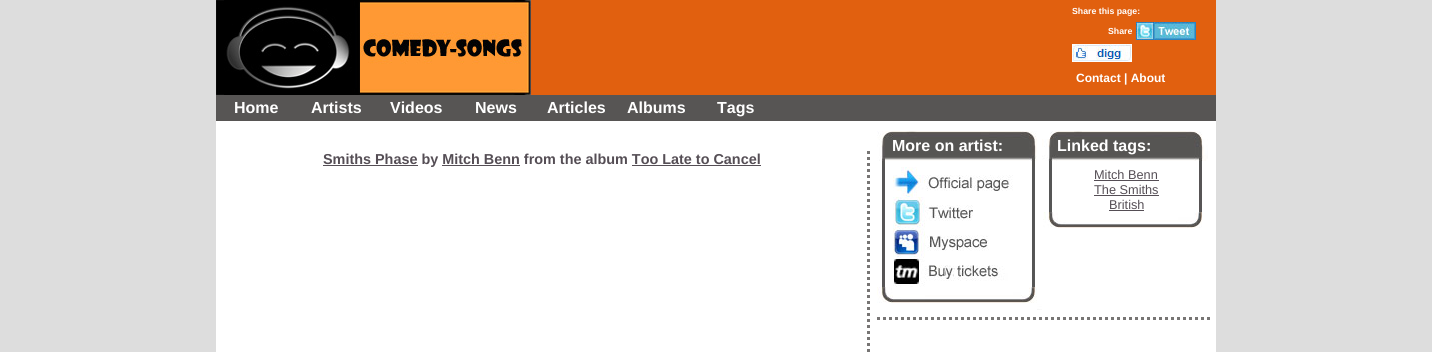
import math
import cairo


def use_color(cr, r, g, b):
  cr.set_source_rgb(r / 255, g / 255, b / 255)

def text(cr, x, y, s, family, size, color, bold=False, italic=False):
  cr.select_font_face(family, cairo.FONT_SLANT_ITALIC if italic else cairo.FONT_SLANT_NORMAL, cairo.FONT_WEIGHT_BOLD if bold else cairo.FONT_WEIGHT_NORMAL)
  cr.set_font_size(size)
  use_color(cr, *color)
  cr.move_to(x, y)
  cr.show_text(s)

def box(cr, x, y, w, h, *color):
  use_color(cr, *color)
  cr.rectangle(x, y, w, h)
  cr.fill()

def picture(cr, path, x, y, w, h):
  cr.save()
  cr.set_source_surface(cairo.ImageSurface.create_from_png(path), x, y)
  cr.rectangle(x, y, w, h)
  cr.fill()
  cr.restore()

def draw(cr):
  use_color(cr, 221, 221, 221)
  cr.paint()
  box(cr, 216, 121, 1000, 231, 255, 255, 255)
  box(cr, 531, 0, 685, 95, 225, 96, 15)
  picture(cr, "img_01.png", 216, 0, 315, 95)
  picture(cr, "img_02.png", 1136, 22, 60, 18)
  picture(cr, "img_03.png", 1072, 44, 60, 18)
  box(cr, 216, 95, 1000, 26, 87, 85, 84)
  cr.new_path()
  cr.move_to(868.5, 151)
  cr.line_to(868.5, 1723)
  use_color(cr, 119, 117, 116)
  cr.set_line_width(3)
  cr.set_dash([3, 3])
  cr.stroke()
  box(cr, 323, 165, 95, 1, 85, 78, 85)
  box(cr, 442, 165, 78, 1, 85, 78, 85)
  box(cr, 632, 165, 129, 1, 85, 78, 85)
  cr.new_path()
  cr.move_to(877, 318.5)
  cr.line_to(1211, 318.5)
  use_color(cr, 119, 117, 116)
  cr.stroke()
  picture(cr, "img_04.png", 877, 131, 160, 30)
  picture(cr, "img_05.png", 882, 161, 153, 6)
  picture(cr, "img_06.png", 882, 167, 153, 30)
  picture(cr, "img_07.png", 882, 197, 153, 30)
  picture(cr, "img_08.png", 882, 227, 153, 30)
  picture(cr, "img_09.png", 882, 257, 153, 30)
  picture(cr, "img_10.png", 877, 287, 165, 23)
  picture(cr, "img_11.png", 1042, 131, 166, 30)
  picture(cr, "img_12.png", 1049, 161, 153, 6)
  picture(cr, "img_13.png", 1049, 167, 153, 45)
  box(cr, 1094, 180, 65, 1, 85, 78, 85)
  box(cr, 1094, 195, 65, 1, 85, 78, 85)
  box(cr, 1109, 210, 35, 1, 85, 78, 85)
  picture(cr, "img_14.png", 1043, 212, 159, 16)
  text(cr, 1072, 14, "Share this page:", "Liberation Sans", 8.75, (255, 255, 255), bold=True)
  text(cr, 1108, 34, "Share", "Liberation Sans", 8.75, (255, 255, 255), bold=True)
  text(cr, 1076, 82, "Contact | About", "Liberation Sans", 12, (255, 255, 255), bold=True)
  text(cr, 234, 113, "Home", "Liberation Sans", 16, (255, 255, 255), bold=True)
  text(cr, 311, 113, "Artists", "Liberation Sans", 16, (255, 255, 255), bold=True)
  text(cr, 390, 113, "Videos", "Liberation Sans", 16, (255, 255, 255), bold=True)
  text(cr, 475, 113, "News", "Liberation Sans", 16, (255, 255, 255), bold=True)
  text(cr, 547, 113, "Articles", "Liberation Sans", 16, (255, 255, 255), bold=True)
  text(cr, 627, 113, "Albums", "Liberation Sans", 16, (255, 255, 255), bold=True)
  text(cr, 717, 113, "Tags", "Liberation Sans", 16, (255, 255, 255), bold=True)
  text(cr, 323, 164, "Smiths Phase by Mitch Benn from the album Too Late to Cancel", "Liberation Sans", 14.4, (85, 78, 85), bold=True)
  text(cr, 892, 151, "More on artist:", "Liberation Sans", 16, (255, 255, 255), bold=True)
  text(cr, 1057, 151, "Linked tags:", "Liberation Sans", 16, (255, 255, 255), bold=True)
  text(cr, 1094, 179, "Mitch Benn", "Liberation Sans", 12.75, (85, 78, 85))
  text(cr, 1094, 194, "The Smiths", "Liberation Sans", 12.75, (85, 78, 85))
  text(cr, 1109, 209, "British", "Liberation Sans", 12.75, (85, 78, 85))


surface = cairo.ImageSurface(cairo.FORMAT_RGB24, 1432, 352)
cr = cairo.Context(surface)
options = cairo.FontOptions()
options.set_hint_metrics(cairo.HINT_METRICS_OFF)
options.set_hint_style(cairo.HINT_STYLE_NONE)
cr.set_font_options(options)
cr.set_miter_limit(4)
draw(cr)
surface.write_to_png("out.png")
